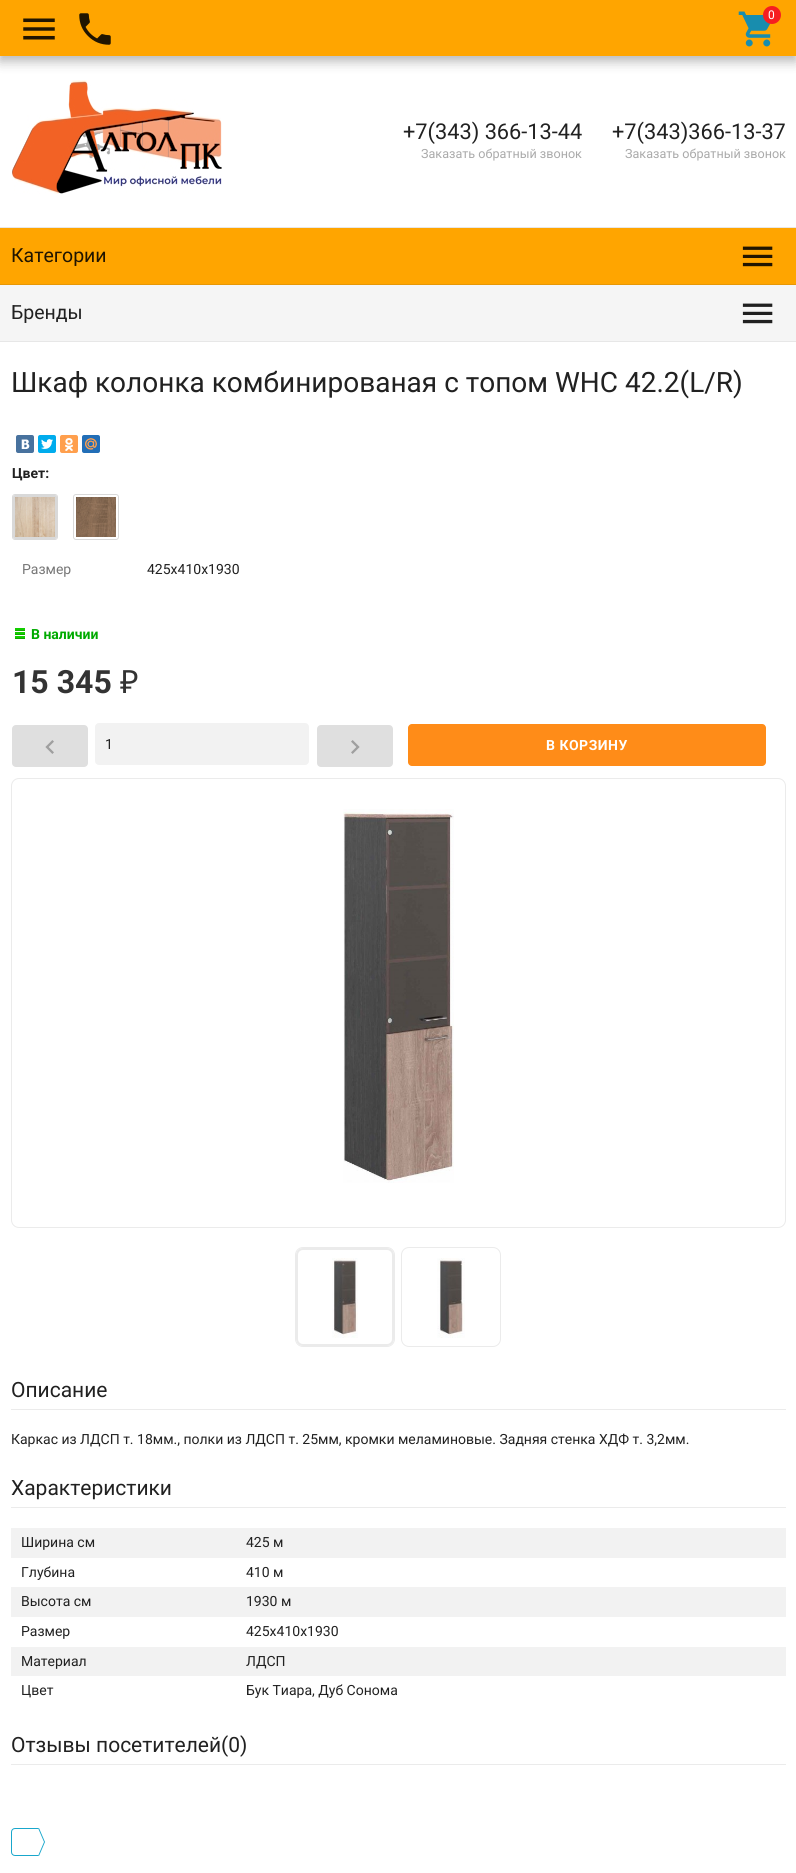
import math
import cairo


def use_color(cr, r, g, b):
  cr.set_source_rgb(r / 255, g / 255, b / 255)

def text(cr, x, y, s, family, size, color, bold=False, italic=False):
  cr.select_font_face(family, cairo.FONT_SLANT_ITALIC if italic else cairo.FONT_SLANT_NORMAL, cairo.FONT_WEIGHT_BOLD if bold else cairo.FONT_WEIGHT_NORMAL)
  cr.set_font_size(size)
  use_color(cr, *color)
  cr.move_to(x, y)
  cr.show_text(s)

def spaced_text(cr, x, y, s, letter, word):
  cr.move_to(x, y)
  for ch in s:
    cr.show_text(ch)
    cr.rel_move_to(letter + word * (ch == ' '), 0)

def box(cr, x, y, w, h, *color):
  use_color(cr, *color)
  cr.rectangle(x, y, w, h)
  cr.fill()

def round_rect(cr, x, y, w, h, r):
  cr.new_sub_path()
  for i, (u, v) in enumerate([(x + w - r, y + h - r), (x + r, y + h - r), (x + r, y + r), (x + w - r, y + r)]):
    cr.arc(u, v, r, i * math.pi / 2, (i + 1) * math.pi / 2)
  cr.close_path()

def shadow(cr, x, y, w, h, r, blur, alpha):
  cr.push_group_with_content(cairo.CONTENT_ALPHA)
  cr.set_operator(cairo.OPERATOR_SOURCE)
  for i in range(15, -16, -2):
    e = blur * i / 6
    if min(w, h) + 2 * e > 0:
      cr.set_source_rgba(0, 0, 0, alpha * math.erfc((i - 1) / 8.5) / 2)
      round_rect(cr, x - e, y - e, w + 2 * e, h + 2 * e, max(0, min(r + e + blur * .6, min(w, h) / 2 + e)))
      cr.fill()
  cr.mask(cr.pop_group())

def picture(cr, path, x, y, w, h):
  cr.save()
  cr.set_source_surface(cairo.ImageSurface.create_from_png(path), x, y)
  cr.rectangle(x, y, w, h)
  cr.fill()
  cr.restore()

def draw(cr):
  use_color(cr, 255, 255, 255)
  cr.paint()
  picture(cr, "img_04.png", 12, 80, 210, 114)
  use_color(cr, 0, 0, 0)
  shadow(cr, 0, 4, 796, 56, 0, 7.5, 0.15)
  shadow(cr, 0, 5, 796, 56, 0, 5.5, 0.18)
  box(cr, 0, 0, 796, 56, 255, 165, 0)
  picture(cr, "img_01.png", 23, 18, 32, 22)
  picture(cr, "img_02.png", 79, 13, 32, 32)
  picture(cr, "img_03.png", 738, 11, 33, 36)
  use_color(cr, 246, 30, 32)
  cr.arc(772, 15, 9, 0, 2 * math.pi)
  cr.fill()
  box(cr, 0, 227, 796, 1, 231, 231, 231)
  box(cr, 0, 228, 796, 56, 255, 165, 0)
  box(cr, 0, 284, 796, 1, 231, 151, 6)
  picture(cr, "img_05.png", 742, 246, 31, 21)
  box(cr, 0, 341, 796, 1, 231, 231, 231)
  box(cr, 0, 285, 796, 56, 245, 245, 245)
  picture(cr, "img_06.png", 742, 303, 31, 21)
  use_color(cr, 72, 114, 158)
  round_rect(cr, 16, 435, 18, 18, 2)
  cr.fill()
  picture(cr, "img_07.png", 21, 439, 9, 10)
  use_color(cr, 0, 172, 237)
  round_rect(cr, 38, 435, 18, 18, 2)
  cr.fill()
  picture(cr, "img_08.png", 41, 439, 12, 10)
  use_color(cr, 255, 159, 77)
  round_rect(cr, 60, 435, 18, 18, 2)
  cr.fill()
  picture(cr, "img_09.png", 65, 438, 8, 13)
  use_color(cr, 34, 110, 183)
  round_rect(cr, 82, 435, 18, 18, 2)
  cr.fill()
  picture(cr, "img_10.png", 85, 438, 12, 12)
  round_rect(cr, 14, 496, 42, 42, 1)
  use_color(cr, 217, 217, 217)
  cr.stroke()
  round_rect(cr, 12.5, 494.5, 45, 45, 2.5)
  cr.set_line_width(1)
  cr.stroke()
  picture(cr, "img_11.png", 15, 497, 40, 40)
  round_rect(cr, 73.5, 494.5, 45, 45, 2.5)
  cr.stroke()
  picture(cr, "img_12.png", 76, 497, 40, 40)
  picture(cr, "img_13.png", 15, 628, 10, 11)
  use_color(cr, 223, 223, 223)
  round_rect(cr, 12, 725, 76, 42, 4)
  cr.fill()
  picture(cr, "img_14.png", 45, 740, 9, 14)
  use_color(cr, 242, 242, 242)
  round_rect(cr, 95, 723, 214, 42, 4)
  cr.fill()
  use_color(cr, 223, 223, 223)
  round_rect(cr, 317, 725, 76, 42, 4)
  cr.fill()
  picture(cr, "img_15.png", 351, 740, 9, 14)
  use_color(cr, 255, 140, 24)
  round_rect(cr, 408, 724, 358, 42, 4)
  cr.fill()
  round_rect(cr, 11.5, 778.5, 774, 449, 7.5)
  use_color(cr, 235, 235, 235)
  cr.stroke()
  picture(cr, "img_16.png", 343, 809, 111, 374)
  round_rect(cr, 297, 1249, 96, 96, 6)
  cr.set_line_width(2)
  cr.stroke()
  round_rect(cr, 295.5, 1247.5, 99, 99, 7.5)
  cr.set_line_width(1)
  cr.stroke()
  picture(cr, "img_17.png", 332, 1258, 26, 80)
  round_rect(cr, 401.5, 1247.5, 99, 99, 7.5)
  cr.stroke()
  picture(cr, "img_18.png", 437, 1258, 28, 80)
  box(cr, 11, 1409, 775, 1, 235, 235, 235)
  box(cr, 11, 1507, 775, 1, 235, 235, 235)
  box(cr, 11, 1528, 775, 30, 242, 242, 242)
  box(cr, 11, 1587, 775, 30, 242, 242, 242)
  box(cr, 11, 1647, 775, 29, 242, 242, 242)
  box(cr, 11, 1764, 775, 1, 235, 235, 235)
  cr.new_path()
  cr.move_to(15, 1828.5)
  cr.line_to(38.5, 1828.5)
  cr.line_to(38.5, 1855.5)
  cr.line_to(15, 1855.5)
  cr.curve_to(13, 1855.5, 11.5, 1854, 11.5, 1852)
  cr.line_to(11.5, 1832)
  cr.curve_to(11.5, 1830, 13, 1828.5, 15, 1828.5)
  cr.close_path()
  use_color(cr, 25, 167, 204)
  cr.stroke()
  cr.new_path()
  cr.move_to(39, 1856)
  cr.line_to(39, 1828)
  cr.line_to(45, 1842)
  cr.close_path()
  cr.fill()
  use_color(cr, 255, 255, 255)
  cr.new_path()
  cr.move_to(38, 1856)
  cr.line_to(38, 1828)
  cr.line_to(44, 1842)
  cr.close_path()
  cr.fill()
  text(cr, 768, 19, "0", "Roboto", 12, (255, 255, 255))
  text(cr, 403, 139, "+7(343) 366-13-44", "Roboto", 21.75, (33, 33, 33))
  text(cr, 421, 158, "Заказать обратный звонок", "Roboto", 12.6, (170, 170, 170))
  text(cr, 612, 139, "+7(343)366-13-37", "Roboto", 21.75, (33, 33, 33))
  text(cr, 625, 158, "Заказать обратный звонок", "Roboto", 12.6, (170, 170, 170))
  text(cr, 11, 262, "Категории", "Roboto", 19.5, (33, 21, 0))
  text(cr, 11, 319, "Бренды", "Roboto", 19.5, (33, 33, 33))
  text(cr, 11, 392, "Шкаф колонка комбинированая с топом WHC 42.2(L/R)", "Roboto", 28, (33, 33, 33))
  text(cr, 12, 478, "Цвет:", "Roboto", 14, (33, 33, 33), bold=True)
  text(cr, 22, 574, "Размер", "Roboto", 14, (119, 119, 119))
  text(cr, 147, 574, "425х410х1930", "Roboto", 14, (33, 33, 33))
  text(cr, 31, 639, "В наличии", "Roboto", 14, (0, 170, 0), bold=True)
  text(cr, 12, 693, "15 345", "Roboto", 32, (51, 51, 51), bold=True)
  text(cr, 120, 693, "₽", "Noto Sans", 32, (51, 51, 51))
  text(cr, 105, 749, "1", "Roboto", 14, (33, 33, 33))
  cr.select_font_face("Roboto", cairo.FONT_SLANT_NORMAL, cairo.FONT_WEIGHT_BOLD)
  use_color(cr, 255, 255, 255)
  spaced_text(cr, 546, 750, "В КОРЗИНУ", 0.5, 0)
  text(cr, 11, 1397, "Описание", "Roboto", 21, (33, 33, 33))
  text(cr, 11, 1444, "Каркас из ЛДСП т. 18мм., полки из ЛДСП т. 25мм, кромки меламиновые. Задняя стенка ХДФ т. 3,2мм.", "Roboto", 14, (33, 33, 33))
  text(cr, 11, 1495, "Характеристики", "Roboto", 21, (33, 33, 33))
  text(cr, 21, 1547, "Ширина см", "Roboto", 14, (33, 33, 33))
  text(cr, 246, 1547, "425 м", "Roboto", 14, (33, 33, 33))
  text(cr, 21, 1577, "Глубина", "Roboto", 14, (33, 33, 33))
  text(cr, 246, 1577, "410 м", "Roboto", 14, (33, 33, 33))
  text(cr, 21, 1606, "Высота см", "Roboto", 14, (33, 33, 33))
  text(cr, 246, 1606, "1930 м", "Roboto", 14, (33, 33, 33))
  text(cr, 21, 1636, "Размер", "Roboto", 14, (33, 33, 33))
  text(cr, 246, 1636, "425х410х1930", "Roboto", 14, (33, 33, 33))
  text(cr, 21, 1666, "Материал", "Roboto", 14, (33, 33, 33))
  text(cr, 246, 1666, "ЛДСП", "Roboto", 14, (33, 33, 33))
  text(cr, 21, 1695, "Цвет", "Roboto", 14, (33, 33, 33))
  text(cr, 246, 1695, "Бук Тиара, Дуб Сонома", "Roboto", 14, (33, 33, 33))
  text(cr, 11, 1752, "Отзывы посетителей(0)", "Roboto", 21, (33, 33, 33))


surface = cairo.ImageSurface(cairo.FORMAT_RGB24, 796, 1873)
cr = cairo.Context(surface)
options = cairo.FontOptions()
options.set_hint_metrics(cairo.HINT_METRICS_OFF)
options.set_hint_style(cairo.HINT_STYLE_NONE)
cr.set_font_options(options)
cr.set_miter_limit(4)
draw(cr)
surface.write_to_png("out.png")
